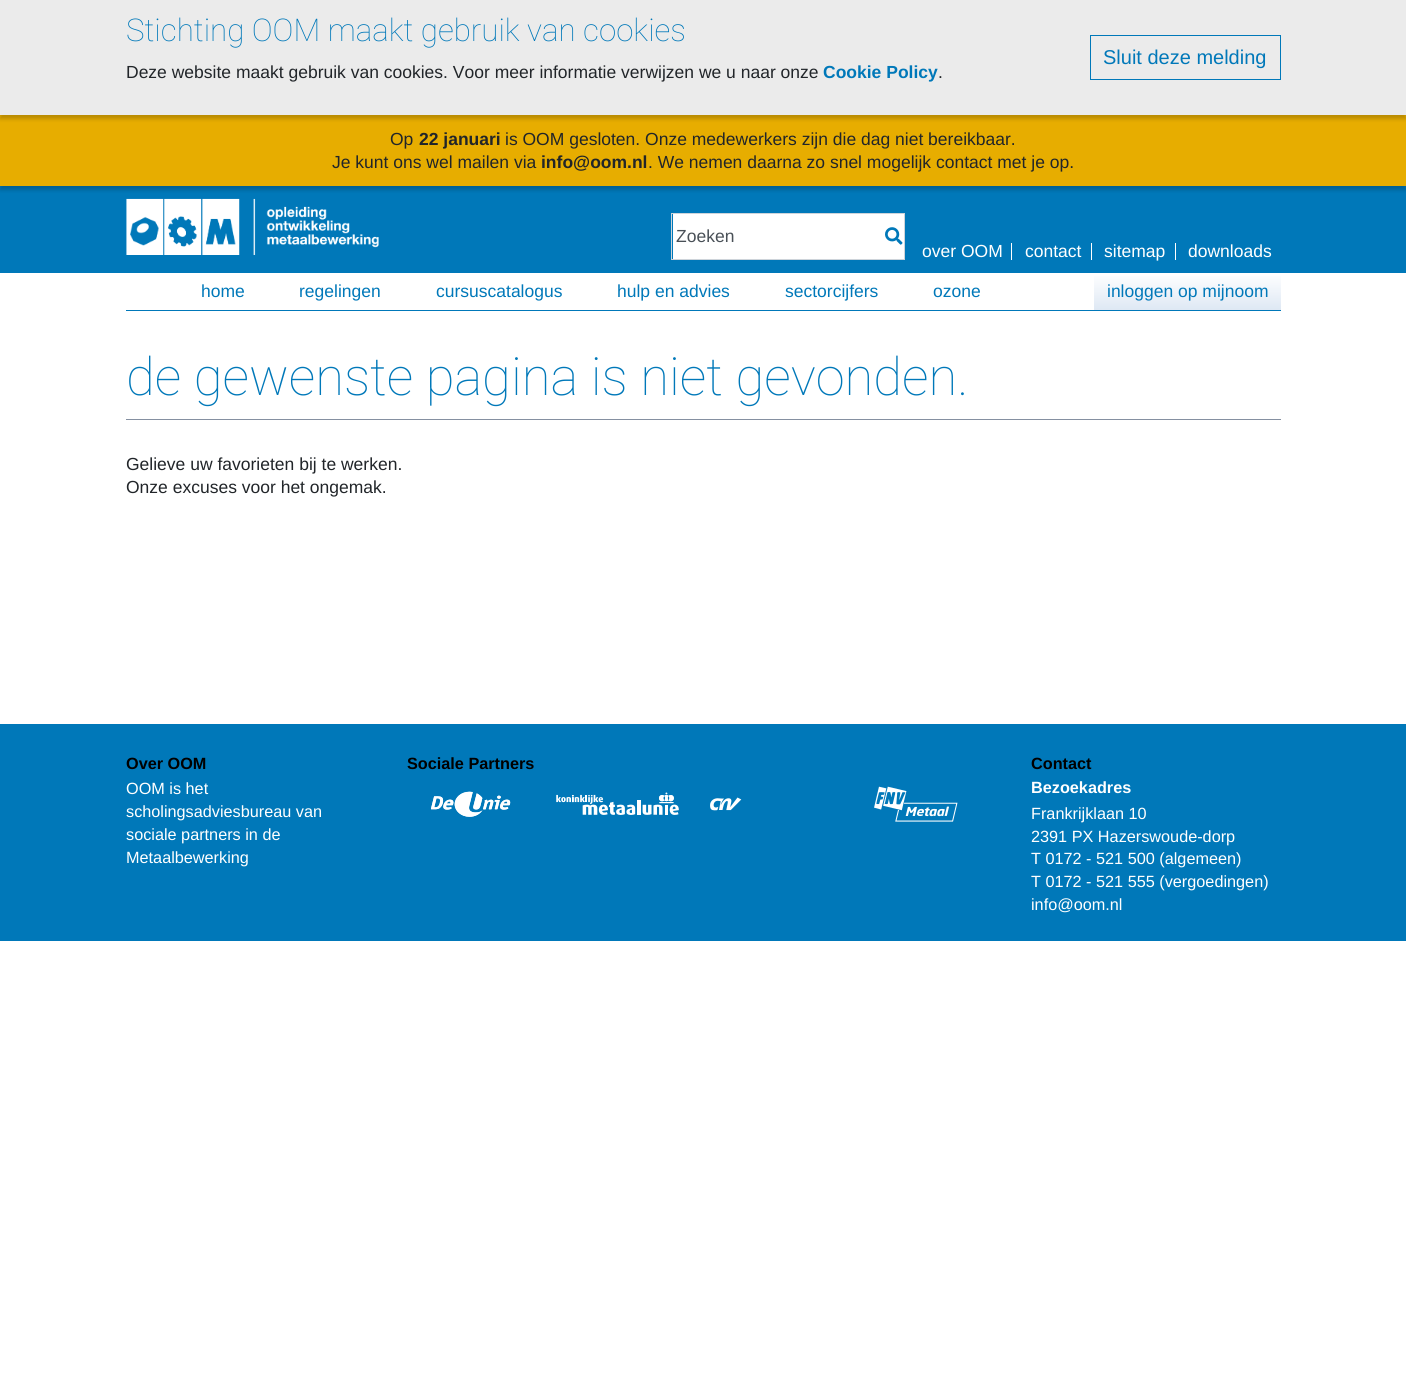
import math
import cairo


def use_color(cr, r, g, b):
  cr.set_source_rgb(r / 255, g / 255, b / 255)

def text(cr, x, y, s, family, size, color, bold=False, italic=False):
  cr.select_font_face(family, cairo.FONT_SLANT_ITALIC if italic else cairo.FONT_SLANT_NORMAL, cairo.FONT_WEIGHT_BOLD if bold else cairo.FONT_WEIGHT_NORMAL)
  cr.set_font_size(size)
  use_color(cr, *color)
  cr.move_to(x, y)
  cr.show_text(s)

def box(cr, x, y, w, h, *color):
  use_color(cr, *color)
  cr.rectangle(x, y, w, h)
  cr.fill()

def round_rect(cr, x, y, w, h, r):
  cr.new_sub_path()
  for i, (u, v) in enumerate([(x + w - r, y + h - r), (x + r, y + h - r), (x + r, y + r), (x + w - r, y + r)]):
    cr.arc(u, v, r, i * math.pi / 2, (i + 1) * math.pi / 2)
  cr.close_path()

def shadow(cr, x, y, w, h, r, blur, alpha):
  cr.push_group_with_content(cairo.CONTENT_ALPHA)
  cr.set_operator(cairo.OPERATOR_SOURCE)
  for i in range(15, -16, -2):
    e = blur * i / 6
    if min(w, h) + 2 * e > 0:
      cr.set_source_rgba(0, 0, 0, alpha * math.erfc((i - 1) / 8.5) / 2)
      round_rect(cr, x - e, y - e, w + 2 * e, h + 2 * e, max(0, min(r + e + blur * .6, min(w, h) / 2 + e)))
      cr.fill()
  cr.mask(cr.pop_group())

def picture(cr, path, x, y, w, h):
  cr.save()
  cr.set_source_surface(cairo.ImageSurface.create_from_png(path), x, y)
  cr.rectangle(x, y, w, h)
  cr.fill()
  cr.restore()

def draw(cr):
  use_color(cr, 255, 255, 255)
  cr.paint()
  box(cr, 0, 186, 1406, 87, 0, 120, 185)
  use_color(cr, 0, 0, 0)
  shadow(cr, 0, 119, 1406, 71, 0, 2, 0.2)
  box(cr, 0, 115, 1406, 71, 231, 173, 0)
  use_color(cr, 0, 0, 0)
  shadow(cr, 0, 4, 1406, 115, 0, 2, 0.2)
  box(cr, 0, 0, 1406, 115, 235, 235, 235)
  cr.rectangle(1090.5, 35.5, 190, 44)
  use_color(cr, 0, 120, 185)
  cr.set_line_width(1)
  cr.stroke()
  picture(cr, "img_01.png", 126, 198, 253, 57)
  box(cr, 673, 214, 231, 45, 255, 255, 255)
  cr.rectangle(671.5, 213.5, 233, 46)
  use_color(cr, 206, 212, 218)
  cr.stroke()
  picture(cr, "img_02.png", 885, 227, 18, 18)
  box(cr, 1011, 243, 1, 17, 255, 255, 255)
  box(cr, 1091, 243, 1, 17, 255, 255, 255)
  box(cr, 1175, 243, 1, 17, 255, 255, 255)
  box(cr, 126, 310, 1155, 1, 0, 120, 185)
  gradient = cairo.LinearGradient(1188, 273, 1188, 310)
  gradient.add_color_stop_rgba(0, 1, 1, 1, 1)
  gradient.add_color_stop_rgba(1, 0.871, 0.91, 0.957, 1)
  cr.set_source(gradient)
  cr.rectangle(1094, 276, 187, 34)
  cr.fill()
  box(cr, 126, 419, 1155, 1, 133, 144, 161)
  box(cr, 0, 724, 1406, 217, 0, 120, 185)
  picture(cr, "img_03.png", 431, 791, 80, 26)
  picture(cr, "img_04.png", 556, 792, 123, 23)
  picture(cr, "img_05.png", 710, 797, 32, 14)
  picture(cr, "img_06.png", 874, 786, 84, 36)
  text(cr, 126, 41, "Stichting OOM maakt gebruik van cookies", "Roboto Thin", 31.25, (0, 120, 185))
  text(cr, 126, 78, "Deze website maakt gebruik van cookies. Voor meer informatie verwijzen we u naar onze", "Liberation Sans", 17.5, (33, 37, 41))
  text(cr, 823, 78, "Cookie Policy", "Liberation Sans", 17.5, (0, 120, 185), bold=True)
  text(cr, 938, 78, ".", "Liberation Sans", 17.5, (33, 37, 41))
  text(cr, 1103, 64, "Sluit deze melding", "Liberation Sans", 20, (0, 120, 185))
  text(cr, 390, 145, "Op", "Liberation Sans", 17.5, (33, 37, 41))
  text(cr, 419, 145, "22 januari", "Liberation Sans", 17.5, (33, 37, 41), bold=True)
  text(cr, 505, 145, "is OOM gesloten. Onze medewerkers zijn die dag niet bereikbaar.", "Liberation Sans", 17.5, (33, 37, 41))
  text(cr, 332, 168, "Je kunt ons wel mailen via", "Liberation Sans", 17.5, (33, 37, 41))
  text(cr, 541, 168, "info@oom.nl", "Liberation Sans", 17.5, (33, 37, 41), bold=True)
  text(cr, 648, 168, ". We nemen daarna zo snel mogelijk contact met je op.", "Liberation Sans", 17.5, (33, 37, 41))
  text(cr, 676, 242, "Zoeken", "Liberation Sans", 17.5, (73, 80, 87))
  text(cr, 922, 257, "over OOM", "Liberation Sans", 17.5, (255, 255, 255))
  text(cr, 1025, 257, "contact", "Liberation Sans", 17.5, (255, 255, 255))
  text(cr, 1104, 257, "sitemap", "Liberation Sans", 17.5, (255, 255, 255))
  text(cr, 1188, 257, "downloads", "Liberation Sans", 17.5, (255, 255, 255))
  text(cr, 201, 297, "home", "Liberation Sans", 17.5, (0, 120, 185))
  text(cr, 299, 297, "regelingen", "Liberation Sans", 17.5, (0, 120, 185))
  text(cr, 436, 297, "cursuscatalogus", "Liberation Sans", 17.5, (0, 120, 185))
  text(cr, 617, 297, "hulp en advies", "Liberation Sans", 17.5, (0, 120, 185))
  text(cr, 785, 297, "sectorcijfers", "Liberation Sans", 17.5, (0, 120, 185))
  text(cr, 933, 297, "ozone", "Liberation Sans", 17.5, (0, 120, 185))
  text(cr, 1107, 297, "inloggen op mijnoom", "Liberation Sans", 17.5, (0, 120, 185))
  text(cr, 126, 395, "de gewenste pagina is niet gevonden.", "Roboto Thin", 52.5, (0, 120, 185))
  text(cr, 126, 470, "Gelieve uw favorieten bij te werken.", "Liberation Sans", 17.5, (33, 37, 41))
  text(cr, 126, 493, "Onze excuses voor het ongemak.", "Liberation Sans", 17.5, (33, 37, 41))
  text(cr, 126, 769, "Over OOM", "Liberation Sans", 16.25, (0, 0, 0), bold=True)
  text(cr, 126, 794, "OOM is het", "Liberation Sans", 16.25, (255, 255, 255))
  text(cr, 126, 817, "scholingsadviesbureau van", "Liberation Sans", 16.25, (255, 255, 255))
  text(cr, 126, 840, "sociale partners in de", "Liberation Sans", 16.25, (255, 255, 255))
  text(cr, 126, 863, "Metaalbewerking", "Liberation Sans", 16.25, (255, 255, 255))
  text(cr, 407, 769, "Sociale Partners", "Liberation Sans", 16.25, (0, 0, 0), bold=True)
  text(cr, 1031, 769, "Contact", "Liberation Sans", 16.25, (0, 0, 0), bold=True)
  text(cr, 1031, 793, "Bezoekadres", "Liberation Sans", 16.25, (255, 255, 255), bold=True)
  text(cr, 1031, 819, "Frankrijklaan 10", "Liberation Sans", 16.25, (255, 255, 255))
  text(cr, 1031, 842, "2391 PX Hazerswoude-dorp", "Liberation Sans", 16.25, (255, 255, 255))
  text(cr, 1031, 864, "T 0172 - 521 500 (algemeen)", "Liberation Sans", 16.25, (255, 255, 255))
  text(cr, 1031, 887, "T 0172 - 521 555 (vergoedingen)", "Liberation Sans", 16.25, (255, 255, 255))
  text(cr, 1031, 910, "info@oom.nl", "Liberation Sans", 16.25, (255, 255, 255))


surface = cairo.ImageSurface(cairo.FORMAT_RGB24, 1406, 1375)
cr = cairo.Context(surface)
options = cairo.FontOptions()
options.set_hint_metrics(cairo.HINT_METRICS_OFF)
options.set_hint_style(cairo.HINT_STYLE_NONE)
cr.set_font_options(options)
cr.set_miter_limit(4)
draw(cr)
surface.write_to_png("out.png")
